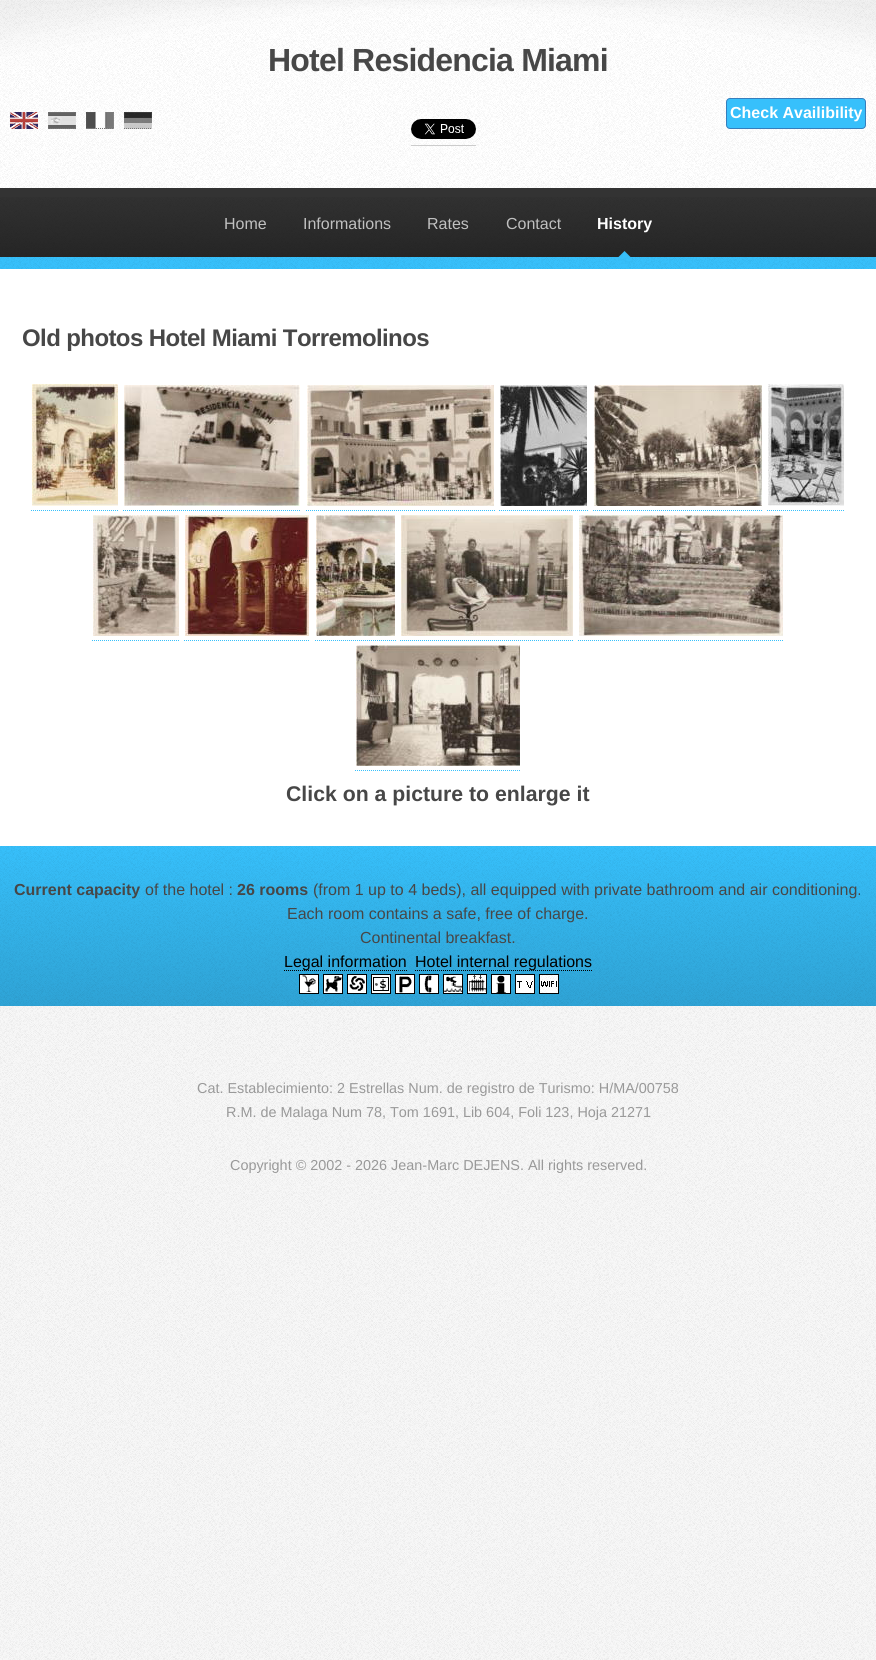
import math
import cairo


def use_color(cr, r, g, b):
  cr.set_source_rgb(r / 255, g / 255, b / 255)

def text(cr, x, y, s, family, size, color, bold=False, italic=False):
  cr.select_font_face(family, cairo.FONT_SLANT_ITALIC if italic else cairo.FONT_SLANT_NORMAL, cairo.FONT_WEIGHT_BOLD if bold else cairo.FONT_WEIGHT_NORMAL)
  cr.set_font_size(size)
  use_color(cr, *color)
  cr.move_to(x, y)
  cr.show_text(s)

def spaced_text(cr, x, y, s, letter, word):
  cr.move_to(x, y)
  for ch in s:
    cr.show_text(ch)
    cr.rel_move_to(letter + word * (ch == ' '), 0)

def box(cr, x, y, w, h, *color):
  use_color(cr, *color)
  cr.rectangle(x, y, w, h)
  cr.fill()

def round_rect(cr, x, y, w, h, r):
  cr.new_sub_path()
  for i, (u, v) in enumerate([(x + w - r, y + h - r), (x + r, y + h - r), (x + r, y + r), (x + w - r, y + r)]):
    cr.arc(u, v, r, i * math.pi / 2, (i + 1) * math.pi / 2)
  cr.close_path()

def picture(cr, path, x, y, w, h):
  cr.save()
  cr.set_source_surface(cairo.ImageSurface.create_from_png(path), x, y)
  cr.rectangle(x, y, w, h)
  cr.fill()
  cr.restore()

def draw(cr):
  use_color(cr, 247, 247, 247)
  cr.paint()
  picture(cr, "img_01.png", 0, 1006, 876, 654)
  box(cr, 0, 0, 876, 188, 255, 255, 255)
  picture(cr, "img_02.png", 0, 0, 876, 188)
  picture(cr, "img_03.png", 10, 112, 28, 17)
  picture(cr, "img_04.png", 48, 112, 28, 17)
  cr.new_path()
  cr.move_to(48, 128.5)
  cr.line_to(76, 128.5)
  use_color(cr, 119, 119, 119)
  cr.set_line_width(1)
  cr.set_dash([1, 1])
  cr.stroke()
  picture(cr, "img_05.png", 86, 112, 28, 17)
  cr.new_path()
  cr.move_to(86, 128.5)
  cr.line_to(114, 128.5)
  cr.stroke()
  picture(cr, "img_06.png", 124, 112, 28, 17)
  cr.new_path()
  cr.move_to(124, 128.5)
  cr.line_to(152, 128.5)
  cr.stroke()
  box(cr, 411, 145, 65, 1, 204, 204, 204)
  picture(cr, "img_07.png", 411, 119, 65, 20)
  use_color(cr, 55, 192, 251)
  round_rect(cr, 726.5, 98.5, 139, 30, 3.5)
  cr.fill_preserve()
  use_color(cr, 53, 126, 189)
  cr.set_dash([])
  cr.stroke()
  box(cr, 0, 188, 876, 69, 51, 51, 51)
  picture(cr, "img_08.png", 0, 197, 876, 60)
  box(cr, 0, 257, 876, 12, 55, 192, 251)
  picture(cr, "img_10.png", 0, 257, 876, 12)
  cr.new_path()
  cr.move_to(624.5, 251)
  cr.line_to(633, 259.5)
  cr.line_to(624.5, 268)
  cr.line_to(616, 259.5)
  cr.close_path()
  cr.fill()
  picture(cr, "img_09.png", 618, 252, 15, 12)
  box(cr, 0, 269, 876, 577, 255, 255, 255)
  picture(cr, "img_11.png", 32, 384, 86, 122)
  picture(cr, "img_12.png", 124, 385, 176, 121)
  picture(cr, "img_13.png", 307, 385, 187, 121)
  picture(cr, "img_14.png", 500, 385, 87, 121)
  picture(cr, "img_15.png", 594, 385, 168, 121)
  picture(cr, "img_16.png", 768, 384, 76, 122)
  cr.new_path()
  cr.move_to(31, 510.5)
  cr.line_to(119, 510.5)
  use_color(cr, 55, 192, 251)
  cr.set_dash([1, 1])
  cr.stroke()
  cr.new_path()
  cr.move_to(123, 510.5)
  cr.line_to(301, 510.5)
  cr.stroke()
  cr.new_path()
  cr.move_to(306, 510.5)
  cr.line_to(495, 510.5)
  cr.stroke()
  cr.new_path()
  cr.move_to(499, 510.5)
  cr.line_to(588, 510.5)
  cr.stroke()
  cr.new_path()
  cr.move_to(593, 510.5)
  cr.line_to(763, 510.5)
  cr.stroke()
  cr.new_path()
  cr.move_to(767, 510.5)
  cr.line_to(845, 510.5)
  cr.stroke()
  picture(cr, "img_17.png", 93, 515, 86, 121)
  picture(cr, "img_18.png", 185, 515, 124, 121)
  picture(cr, "img_19.png", 316, 515, 79, 121)
  picture(cr, "img_20.png", 401, 515, 172, 121)
  picture(cr, "img_21.png", 579, 515, 204, 121)
  cr.new_path()
  cr.move_to(92, 640.5)
  cr.line_to(180, 640.5)
  cr.stroke()
  cr.new_path()
  cr.move_to(184, 640.5)
  cr.line_to(310, 640.5)
  cr.stroke()
  cr.new_path()
  cr.move_to(315, 640.5)
  cr.line_to(396, 640.5)
  cr.stroke()
  cr.new_path()
  cr.move_to(400, 640.5)
  cr.line_to(574, 640.5)
  cr.stroke()
  cr.new_path()
  cr.move_to(578, 640.5)
  cr.line_to(784, 640.5)
  cr.stroke()
  picture(cr, "img_22.png", 356, 645, 164, 121)
  cr.new_path()
  cr.move_to(355, 770.5)
  cr.line_to(521, 770.5)
  cr.stroke()
  box(cr, 0, 846, 876, 160, 55, 192, 251)
  picture(cr, "img_23.png", 0, 846, 876, 160)
  cr.new_path()
  cr.move_to(284, 970.5)
  cr.line_to(407, 970.5)
  use_color(cr, 0, 0, 0)
  cr.stroke()
  cr.new_path()
  cr.move_to(415, 970.5)
  cr.line_to(592, 970.5)
  cr.stroke()
  picture(cr, "img_24.png", 299, 974, 20, 20)
  picture(cr, "img_25.png", 323, 974, 20, 20)
  picture(cr, "img_26.png", 347, 974, 20, 20)
  picture(cr, "img_27.png", 371, 974, 20, 20)
  picture(cr, "img_28.png", 395, 974, 20, 20)
  picture(cr, "img_29.png", 419, 974, 20, 20)
  picture(cr, "img_30.png", 443, 974, 20, 20)
  picture(cr, "img_31.png", 467, 974, 20, 20)
  picture(cr, "img_32.png", 491, 974, 20, 20)
  picture(cr, "img_33.png", 515, 974, 20, 20)
  picture(cr, "img_34.png", 539, 974, 20, 20)
  cr.select_font_face("Liberation Sans", cairo.FONT_SLANT_NORMAL, cairo.FONT_WEIGHT_BOLD)
  cr.set_font_size(32)
  use_color(cr, 71, 71, 71)
  spaced_text(cr, 268, 71, "Hotel Residencia Miami", -0.8, 0)
  text(cr, 730, 118, "Check Availibility", "Liberation Sans", 16, (255, 255, 255), bold=True)
  text(cr, 224, 229, "Home", "Liberation Sans", 16, (192, 192, 192))
  text(cr, 303, 229, "Informations", "Liberation Sans", 16, (192, 192, 192))
  text(cr, 427, 229, "Rates", "Liberation Sans", 16, (192, 192, 192))
  text(cr, 506, 229, "Contact", "Liberation Sans", 16, (192, 192, 192))
  text(cr, 597, 229, "History", "Liberation Sans", 16, (255, 255, 255), bold=True)
  cr.set_font_size(24)
  use_color(cr, 71, 71, 71)
  spaced_text(cr, 22, 346, "Old photos Hotel Miami Torremolinos", -0.6, 0)
  text(cr, 286, 801, "Click on a picture to enlarge it", "Liberation Sans", 21.25, (71, 71, 71), bold=True)
  text(cr, 14, 895, "Current capacity", "Liberation Sans", 16, (71, 71, 71), bold=True)
  text(cr, 145, 895, "of the hotel :", "Liberation Sans", 16, (71, 71, 71))
  text(cr, 237, 895, "26 rooms", "Liberation Sans", 16, (71, 71, 71), bold=True)
  text(cr, 313, 895, "(from 1 up to 4 beds), all equipped with private bathroom and air conditioning.", "Liberation Sans", 16, (71, 71, 71))
  text(cr, 287, 919, "Each room contains a safe, free of charge.", "Liberation Sans", 16, (71, 71, 71))
  text(cr, 360, 943, "Continental breakfast.", "Liberation Sans", 16, (71, 71, 71))
  text(cr, 284, 967, "Legal information", "Liberation Sans", 16, (0, 0, 0))
  text(cr, 415, 967, "Hotel internal regulations", "Liberation Sans", 16, (0, 0, 0))
  text(cr, 197, 1093, "Cat. Establecimiento: 2 Estrellas Num. de registro de Turismo: H/MA/00758", "Liberation Sans", 14.4, (153, 153, 153))
  text(cr, 226, 1117, "R.M. de Malaga Num 78, Tom 1691, Lib 604, Foli 123, Hoja 21271", "Liberation Sans", 14.4, (153, 153, 153))
  text(cr, 230, 1170, "Copyright © 2002 - 2026 Jean-Marc DEJENS. All rights reserved.", "Liberation Sans", 14.4, (153, 153, 153))


surface = cairo.ImageSurface(cairo.FORMAT_RGB24, 876, 1660)
cr = cairo.Context(surface)
options = cairo.FontOptions()
options.set_hint_metrics(cairo.HINT_METRICS_OFF)
options.set_hint_style(cairo.HINT_STYLE_NONE)
cr.set_font_options(options)
cr.set_miter_limit(4)
draw(cr)
surface.write_to_png("out.png")
